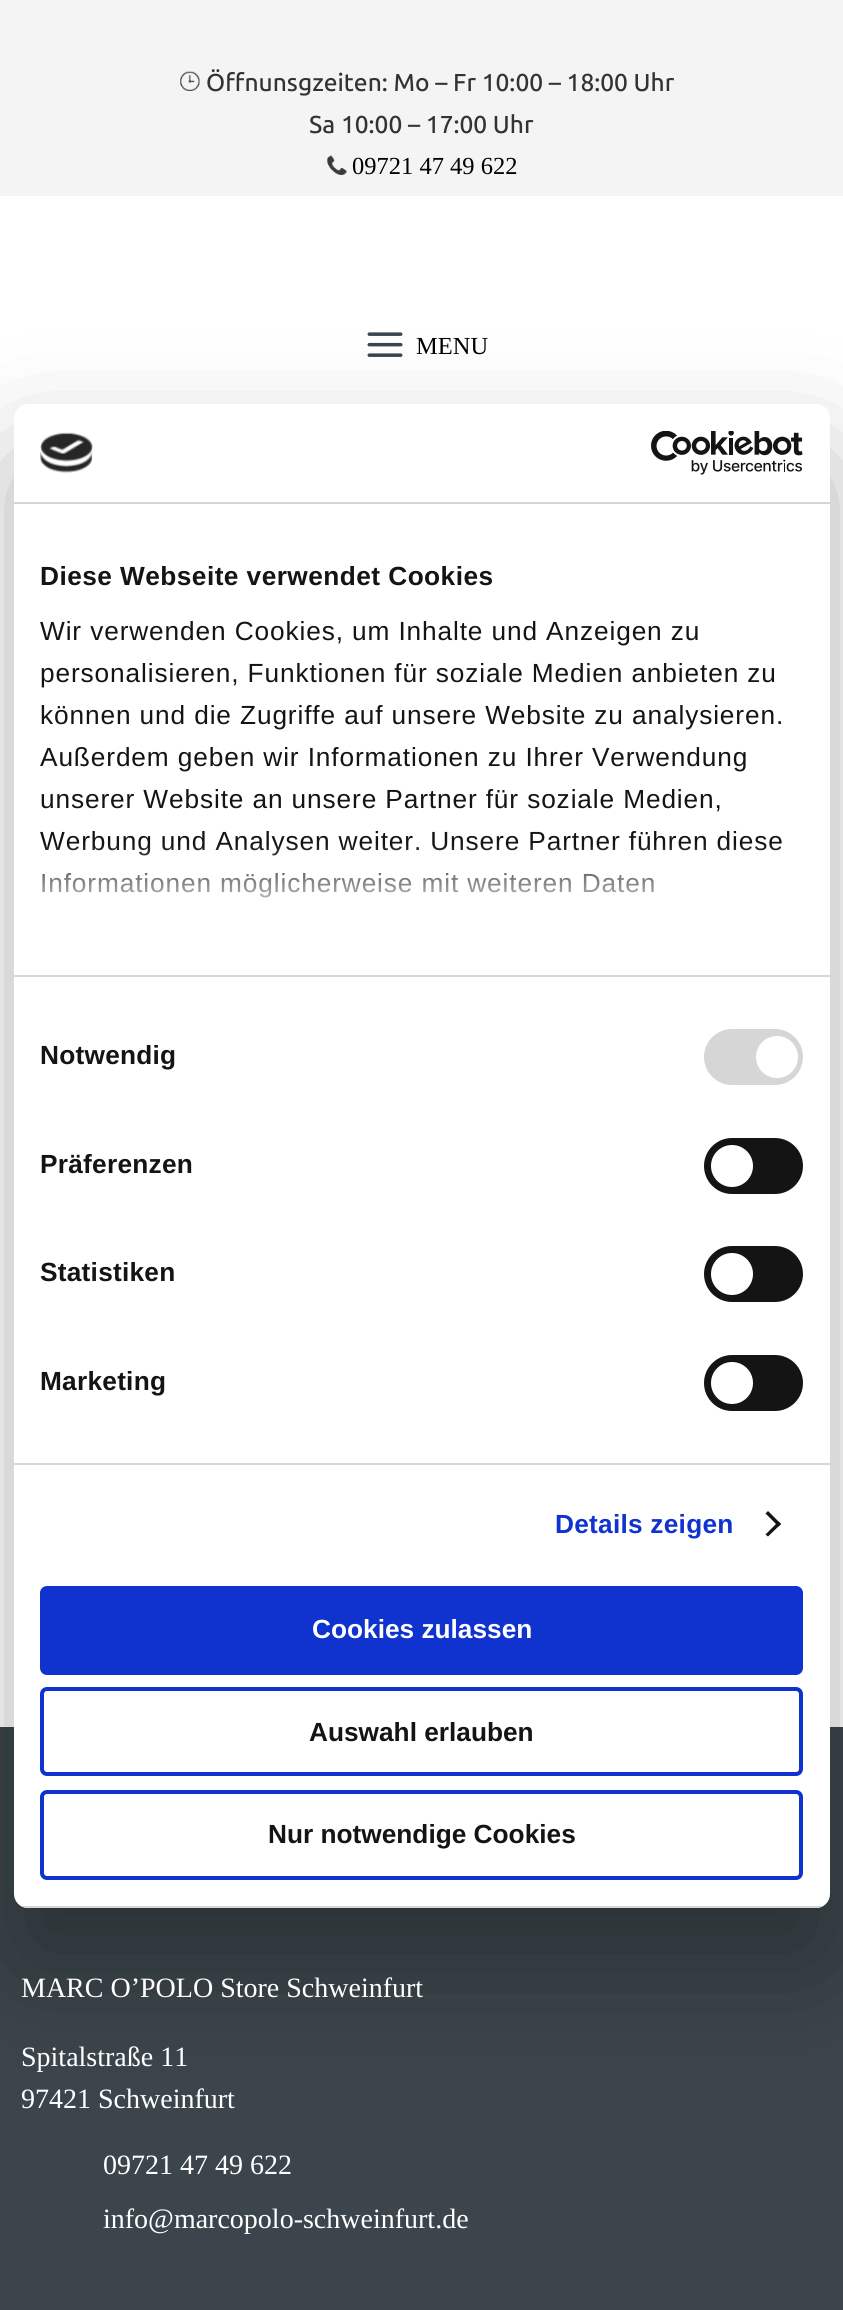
import math
import cairo


def use_color(cr, r, g, b):
  cr.set_source_rgb(r / 255, g / 255, b / 255)

def text(cr, x, y, s, family, size, color, bold=False, italic=False):
  cr.select_font_face(family, cairo.FONT_SLANT_ITALIC if italic else cairo.FONT_SLANT_NORMAL, cairo.FONT_WEIGHT_BOLD if bold else cairo.FONT_WEIGHT_NORMAL)
  cr.set_font_size(size)
  use_color(cr, *color)
  cr.move_to(x, y)
  cr.show_text(s)

def spaced_text(cr, x, y, s, letter, word):
  cr.move_to(x, y)
  for ch in s:
    cr.show_text(ch)
    cr.rel_move_to(letter + word * (ch == ' '), 0)

def box(cr, x, y, w, h, *color):
  use_color(cr, *color)
  cr.rectangle(x, y, w, h)
  cr.fill()

def round_rect(cr, x, y, w, h, r):
  cr.new_sub_path()
  for i, (u, v) in enumerate([(x + w - r, y + h - r), (x + r, y + h - r), (x + r, y + r), (x + w - r, y + r)]):
    cr.arc(u, v, r, i * math.pi / 2, (i + 1) * math.pi / 2)
  cr.close_path()

def shadow(cr, x, y, w, h, r, blur, alpha):
  cr.push_group_with_content(cairo.CONTENT_ALPHA)
  cr.set_operator(cairo.OPERATOR_SOURCE)
  for i in range(15, -16, -2):
    e = blur * i / 6
    if min(w, h) + 2 * e > 0:
      cr.set_source_rgba(0, 0, 0, alpha * math.erfc((i - 1) / 8.5) / 2)
      round_rect(cr, x - e, y - e, w + 2 * e, h + 2 * e, max(0, min(r + e + blur * .6, min(w, h) / 2 + e)))
      cr.fill()
  cr.mask(cr.pop_group())

def picture(cr, path, x, y, w, h):
  cr.save()
  cr.set_source_surface(cairo.ImageSurface.create_from_png(path), x, y)
  cr.rectangle(x, y, w, h)
  cr.fill()
  cr.restore()

def draw(cr):
  use_color(cr, 255, 255, 255)
  cr.paint()
  box(cr, 0, 0, 843, 196, 244, 244, 244)
  picture(cr, "img_01.png", 180, 71, 20, 20)
  picture(cr, "img_02.png", 327, 155, 20, 20)
  picture(cr, "img_03.png", 367, 332, 36, 25)
  box(cr, 0, 1727, 843, 583, 59, 69, 75)
  use_color(cr, 0, 0, 0)
  shadow(cr, 14, 460, 816, 1504, 14, 59.5, 0.3)
  use_color(cr, 255, 255, 255)
  round_rect(cr, 14, 404, 816, 1504, 14)
  cr.fill()
  box(cr, 14, 502, 816, 2, 214, 214, 214)
  picture(cr, "img_04.png", 40, 432, 53, 41)
  picture(cr, "img_05.png", 651, 431, 152, 44)
  box(cr, 14, 975, 816, 2, 214, 214, 214)
  box(cr, 14, 1463, 816, 2, 214, 214, 214)
  round_rect(cr, 704, 1029, 99, 56, 28)
  cr.fill()
  use_color(cr, 255, 255, 255)
  cr.arc(777, 1057, 21, 0, 2 * math.pi)
  cr.fill()
  use_color(cr, 20, 20, 20)
  round_rect(cr, 704, 1138, 99, 56, 28)
  cr.fill()
  use_color(cr, 255, 255, 255)
  cr.arc(732, 1166, 21, 0, 2 * math.pi)
  cr.fill()
  use_color(cr, 20, 20, 20)
  round_rect(cr, 704, 1246, 99, 56, 28)
  cr.fill()
  use_color(cr, 255, 255, 255)
  cr.arc(732, 1274, 21, 0, 2 * math.pi)
  cr.fill()
  use_color(cr, 20, 20, 20)
  round_rect(cr, 704, 1355, 99, 56, 28)
  cr.fill()
  use_color(cr, 255, 255, 255)
  cr.arc(732, 1383, 21, 0, 2 * math.pi)
  cr.fill()
  use_color(cr, 20, 20, 20)
  cr.new_path()
  cr.move_to(768, 1511)
  cr.line_to(781, 1524)
  cr.line_to(778.5, 1526.5)
  cr.line_to(765.5, 1513.5)
  cr.close_path()
  cr.fill()
  cr.new_path()
  cr.move_to(778.5, 1521.5)
  cr.line_to(781, 1524)
  cr.line_to(768, 1536.5)
  cr.line_to(765.5, 1534.5)
  cr.close_path()
  cr.fill()
  cr.save()
  round_rect(cr, 14, 404, 816, 1504, 14)
  cr.clip()
  box(cr, 14, 1906, 816, 2, 214, 214, 214)
  cr.restore()
  use_color(cr, 16, 50, 207)
  round_rect(cr, 42, 1588, 759, 85, 5)
  cr.fill_preserve()
  cr.set_line_width(4)
  cr.stroke()
  round_rect(cr, 42, 1689, 759, 85, 5)
  cr.stroke()
  round_rect(cr, 42, 1792, 759, 86, 5)
  cr.stroke()
  text(cr, 206, 91, "Öffnunsgzeiten: Mo – Fr 10:00 – 18:00 Uhr", "Ubuntu Medium", 24.5, (51, 51, 51))
  text(cr, 309, 133, "Sa 10:00 – 17:00 Uhr", "Ubuntu Medium", 24.5, (51, 51, 51))
  text(cr, 352, 174, "09721 47 49 622", "Liberation Serif", 24.5, (0, 0, 0))
  text(cr, 416, 354, "MENU", "Liberation Serif", 24.5, (0, 0, 0))
  text(cr, 21, 1997, "MARC O’POLO Store Schweinfurt", "Liberation Serif", 28, (255, 255, 255))
  text(cr, 21, 2066, "Spitalstraße 11", "Liberation Serif", 28, (255, 255, 255))
  text(cr, 21, 2108, "97421 Schweinfurt", "Liberation Serif", 28, (255, 255, 255))
  text(cr, 103, 2174, "09721 47 49 622", "Liberation Serif", 28, (255, 255, 255))
  text(cr, 103, 2228, "info@marcopolo-schweinfurt.de", "Liberation Serif", 28, (255, 255, 255))
  cr.select_font_face("Liberation Sans", cairo.FONT_SLANT_NORMAL, cairo.FONT_WEIGHT_BOLD)
  cr.set_font_size(26.25)
  use_color(cr, 20, 20, 20)
  spaced_text(cr, 40, 585, "Diese Webseite verwendet Cookies", 0.45, 0)
  cr.select_font_face("Liberation Sans")
  spaced_text(cr, 40, 640, "Wir verwenden Cookies, um Inhalte und Anzeigen zu", 0.88, 0)
  spaced_text(cr, 40, 682, "personalisieren, Funktionen für soziale Medien anbieten zu", 0.88, 0)
  spaced_text(cr, 40, 724, "können und die Zugriffe auf unsere Website zu analysieren.", 0.88, 0)
  spaced_text(cr, 40, 766, "Außerdem geben wir Informationen zu Ihrer Verwendung", 0.88, 0)
  spaced_text(cr, 40, 808, "unserer Website an unsere Partner für soziale Medien,", 0.88, 0)
  spaced_text(cr, 40, 850, "Werbung und Analysen weiter. Unsere Partner führen diese", 0.88, 0)
  spaced_text(cr, 40, 892, "Informationen möglicherweise mit weiteren Daten", 0.88, 0)
  gradient = cairo.LinearGradient(410, 974, 410, 843)
  gradient.add_color_stop_rgba(0, 1, 1, 1, 1)
  gradient.add_color_stop_rgba(0.5, 1, 1, 1, 0.8)
  gradient.add_color_stop_rgba(1, 1, 1, 1, 0)
  cr.set_source(gradient)
  cr.rectangle(42, 845, 739, 53)
  cr.fill()
  cr.select_font_face("Liberation Sans", cairo.FONT_SLANT_NORMAL, cairo.FONT_WEIGHT_BOLD)
  use_color(cr, 20, 20, 20)
  spaced_text(cr, 40, 1064, "Notwendig", 0.25, 0)
  spaced_text(cr, 40, 1173, "Präferenzen", 0.25, 0)
  spaced_text(cr, 40, 1281, "Statistiken", 0.25, 0)
  spaced_text(cr, 40, 1390, "Marketing", 0.25, 0)
  use_color(cr, 16, 50, 207)
  spaced_text(cr, 555, 1533, "Details zeigen", 0.25, 0)
  text(cr, 312, 1638, "Cookies zulassen", "Liberation Sans", 26.25, (255, 255, 255), bold=True)
  text(cr, 309, 1741, "Auswahl erlauben", "Liberation Sans", 26.25, (20, 20, 20), bold=True)
  text(cr, 268, 1843, "Nur notwendige Cookies", "Liberation Sans", 26.25, (20, 20, 20), bold=True)


surface = cairo.ImageSurface(cairo.FORMAT_RGB24, 843, 2310)
cr = cairo.Context(surface)
options = cairo.FontOptions()
options.set_hint_metrics(cairo.HINT_METRICS_OFF)
options.set_hint_style(cairo.HINT_STYLE_NONE)
cr.set_font_options(options)
cr.set_miter_limit(4)
draw(cr)
surface.write_to_png("out.png")
